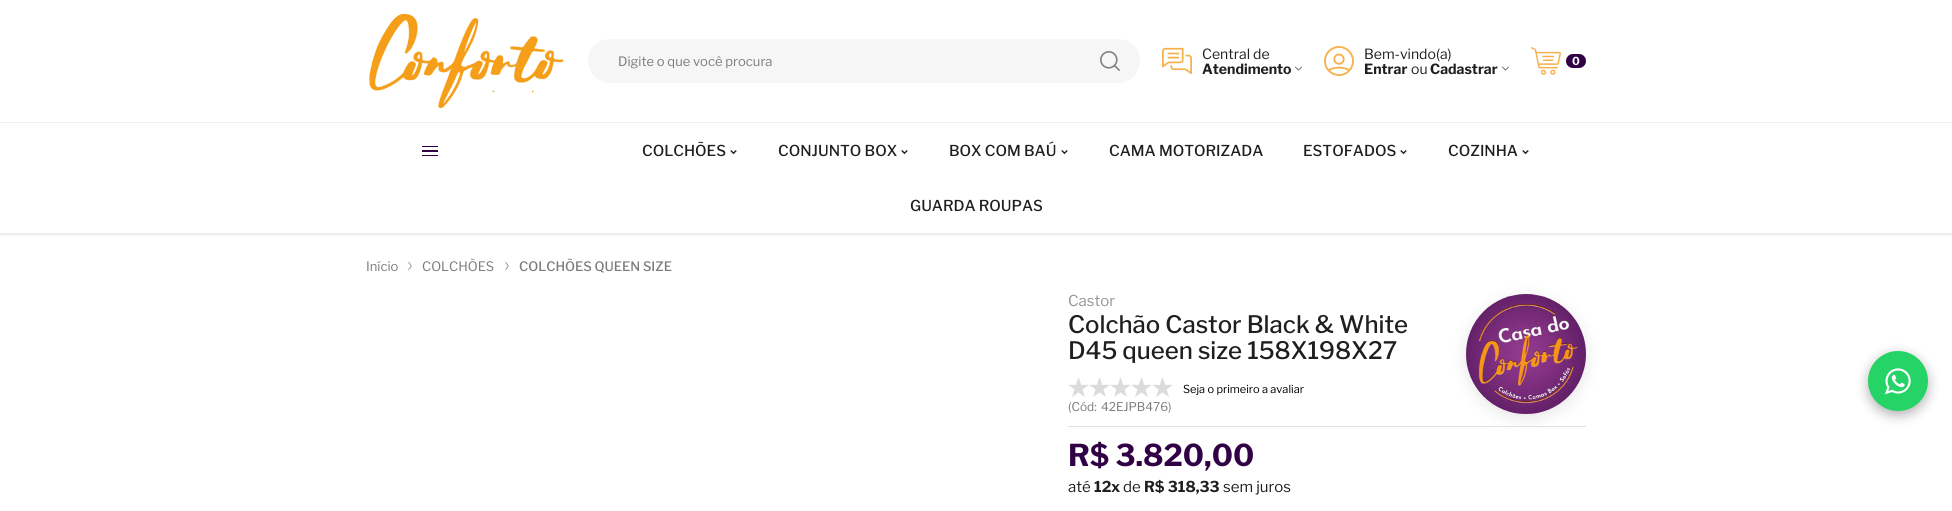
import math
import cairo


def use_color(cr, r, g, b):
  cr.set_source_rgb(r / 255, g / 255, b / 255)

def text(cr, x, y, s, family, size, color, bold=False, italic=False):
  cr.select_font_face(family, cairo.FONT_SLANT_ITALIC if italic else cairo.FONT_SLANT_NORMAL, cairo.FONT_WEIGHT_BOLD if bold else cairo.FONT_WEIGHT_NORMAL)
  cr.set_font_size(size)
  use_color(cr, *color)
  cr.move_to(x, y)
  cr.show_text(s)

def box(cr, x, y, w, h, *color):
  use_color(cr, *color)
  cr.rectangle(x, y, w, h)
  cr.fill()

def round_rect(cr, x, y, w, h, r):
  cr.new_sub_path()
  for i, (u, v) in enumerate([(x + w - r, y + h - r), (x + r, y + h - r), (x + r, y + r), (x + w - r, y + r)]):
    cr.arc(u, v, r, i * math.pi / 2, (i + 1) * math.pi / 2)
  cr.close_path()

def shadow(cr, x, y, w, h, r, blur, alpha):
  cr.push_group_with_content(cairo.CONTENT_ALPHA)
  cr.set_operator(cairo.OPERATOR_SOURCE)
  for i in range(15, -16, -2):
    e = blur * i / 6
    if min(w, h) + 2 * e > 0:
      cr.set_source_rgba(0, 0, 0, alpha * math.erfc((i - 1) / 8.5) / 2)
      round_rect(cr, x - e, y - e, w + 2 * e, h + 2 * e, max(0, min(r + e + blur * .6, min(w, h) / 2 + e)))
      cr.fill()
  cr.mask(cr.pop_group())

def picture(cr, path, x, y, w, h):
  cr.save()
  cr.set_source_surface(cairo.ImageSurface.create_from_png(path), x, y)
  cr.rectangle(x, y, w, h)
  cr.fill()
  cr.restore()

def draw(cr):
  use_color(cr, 255, 255, 255)
  cr.paint()
  use_color(cr, 82, 82, 82)
  shadow(cr, 0, 124, 1952, 110, 0, 2, 0.2)
  box(cr, 1, 121, 1950, 1, 255, 255, 255)
  box(cr, 0, 122, 1952, 1, 241, 241, 241)
  picture(cr, "img_01.png", 369, 13, 195, 96)
  use_color(cr, 246, 246, 246)
  round_rect(cr, 588, 39, 552, 44, 22)
  cr.fill()
  picture(cr, "img_02.png", 1100, 51, 20, 20)
  picture(cr, "img_03.png", 1162, 47, 30, 28)
  picture(cr, "img_04.png", 1295, 66, 7, 5)
  picture(cr, "img_05.png", 1324, 46, 30, 30)
  picture(cr, "img_04.png", 1502, 66, 7, 5)
  picture(cr, "img_06.png", 1531, 47, 30, 28)
  use_color(cr, 49, 1, 70)
  round_rect(cr, 1566, 54, 20, 14, 7)
  cr.fill()
  box(cr, 0, 123, 1952, 110, 255, 255, 255)
  box(cr, 422, 155, 16, 1, 49, 1, 70)
  box(cr, 422, 150, 16, 2, 49, 1, 70)
  box(cr, 422, 146, 16, 1, 49, 1, 70)
  picture(cr, "img_07.png", 730, 150, 7, 5)
  picture(cr, "img_07.png", 901, 150, 7, 5)
  picture(cr, "img_07.png", 1061, 150, 7, 5)
  picture(cr, "img_07.png", 1400, 150, 7, 5)
  picture(cr, "img_07.png", 1522, 150, 7, 5)
  picture(cr, "img_08.png", 408, 262, 4, 8)
  picture(cr, "img_08.png", 505, 262, 4, 8)
  box(cr, 1068, 426, 518, 1, 225, 225, 225)
  use_color(cr, 0, 0, 0)
  shadow(cr, 1466, 298, 120, 120, 60, 7.5, 0.1)
  picture(cr, "img_09.png", 1466, 294, 120, 120)
  picture(cr, "img_10.png", 1068, 377, 21, 20)
  picture(cr, "img_10.png", 1089, 377, 21, 20)
  picture(cr, "img_10.png", 1110, 377, 21, 20)
  picture(cr, "img_10.png", 1131, 377, 21, 20)
  picture(cr, "img_10.png", 1152, 377, 21, 20)
  shadow(cr, 1868, 355, 60, 60, 30, 6, 0.3)
  use_color(cr, 37, 211, 102)
  cr.arc(1898, 381, 30, 0, 2 * math.pi)
  cr.fill()
  picture(cr, "img_11.png", 1885, 368, 26, 27)
  text(cr, 618, 66, "Digite o que você procura", "Libre Franklin", 13, (123, 123, 123))
  text(cr, 1202, 59, "Central de", "Libre Franklin", 14, (32, 31, 31))
  text(cr, 1202, 74, "Atendimento", "Libre Franklin", 14, (32, 31, 31), bold=True)
  text(cr, 1364, 59, "Bem-vindo(a)", "Libre Franklin", 14, (32, 31, 31))
  text(cr, 1364, 74, "Entrar", "Libre Franklin", 14, (32, 31, 31), bold=True)
  text(cr, 1411, 74, "ou", "Libre Franklin", 14, (32, 31, 31))
  text(cr, 1430, 74, "Cadastrar", "Libre Franklin", 14, (32, 31, 31), bold=True)
  text(cr, 1572, 65, "0", "Libre Franklin", 11, (255, 255, 255), bold=True)
  text(cr, 642, 156, "COLCHÕES", "Libre Franklin Medium", 15, (32, 31, 31))
  text(cr, 778, 156, "CONJUNTO BOX", "Libre Franklin Medium", 15, (32, 31, 31))
  text(cr, 949, 156, "BOX COM BAÚ", "Libre Franklin Medium", 15, (32, 31, 31))
  text(cr, 1109, 156, "CAMA MOTORIZADA", "Libre Franklin Medium", 15, (32, 31, 31))
  text(cr, 1303, 156, "ESTOFADOS", "Libre Franklin Medium", 15, (32, 31, 31))
  text(cr, 1448, 156, "COZINHA", "Libre Franklin Medium", 15, (32, 31, 31))
  text(cr, 910, 211, "GUARDA ROUPAS", "Libre Franklin Medium", 15, (32, 31, 31))
  text(cr, 366, 271, "Início", "Libre Franklin", 13, (123, 123, 123))
  text(cr, 422, 271, "COLCHÕES", "Libre Franklin", 13, (123, 123, 123))
  text(cr, 519, 271, "COLCHÕES QUEEN SIZE", "Libre Franklin Medium", 13, (123, 123, 123))
  text(cr, 1068, 306, "Castor", "Libre Franklin", 15, (148, 148, 148))
  text(cr, 1068, 333, "Colchão Castor Black & White", "Libre Franklin Medium", 24, (32, 31, 31))
  text(cr, 1068, 359, "D45 queen size 158X198X27", "Libre Franklin Medium", 24, (32, 31, 31))
  text(cr, 1183, 393, "Seja o primeiro a avaliar", "Libre Franklin", 11, (0, 0, 0))
  text(cr, 1068, 411, "(Cód:", "Libre Franklin", 12, (123, 123, 123))
  text(cr, 1101, 411, "42EJPB476)", "Libre Franklin", 12, (123, 123, 123))
  text(cr, 1068, 466, "R$ 3.820,00", "Libre Franklin", 30, (49, 1, 70), bold=True)
  text(cr, 1068, 492, "até", "Libre Franklin", 15, (32, 31, 31))
  text(cr, 1094, 492, "12x", "Libre Franklin", 15, (32, 31, 31), bold=True)
  text(cr, 1123, 492, "de", "Libre Franklin", 15, (32, 31, 31))
  text(cr, 1144, 492, "R$ 318,33", "Libre Franklin", 15, (32, 31, 31), bold=True)
  text(cr, 1223, 492, "sem juros", "Libre Franklin", 15, (32, 31, 31))


surface = cairo.ImageSurface(cairo.FORMAT_RGB24, 1952, 511)
cr = cairo.Context(surface)
options = cairo.FontOptions()
options.set_hint_metrics(cairo.HINT_METRICS_OFF)
options.set_hint_style(cairo.HINT_STYLE_NONE)
cr.set_font_options(options)
cr.set_miter_limit(4)
draw(cr)
surface.write_to_png("out.png")
